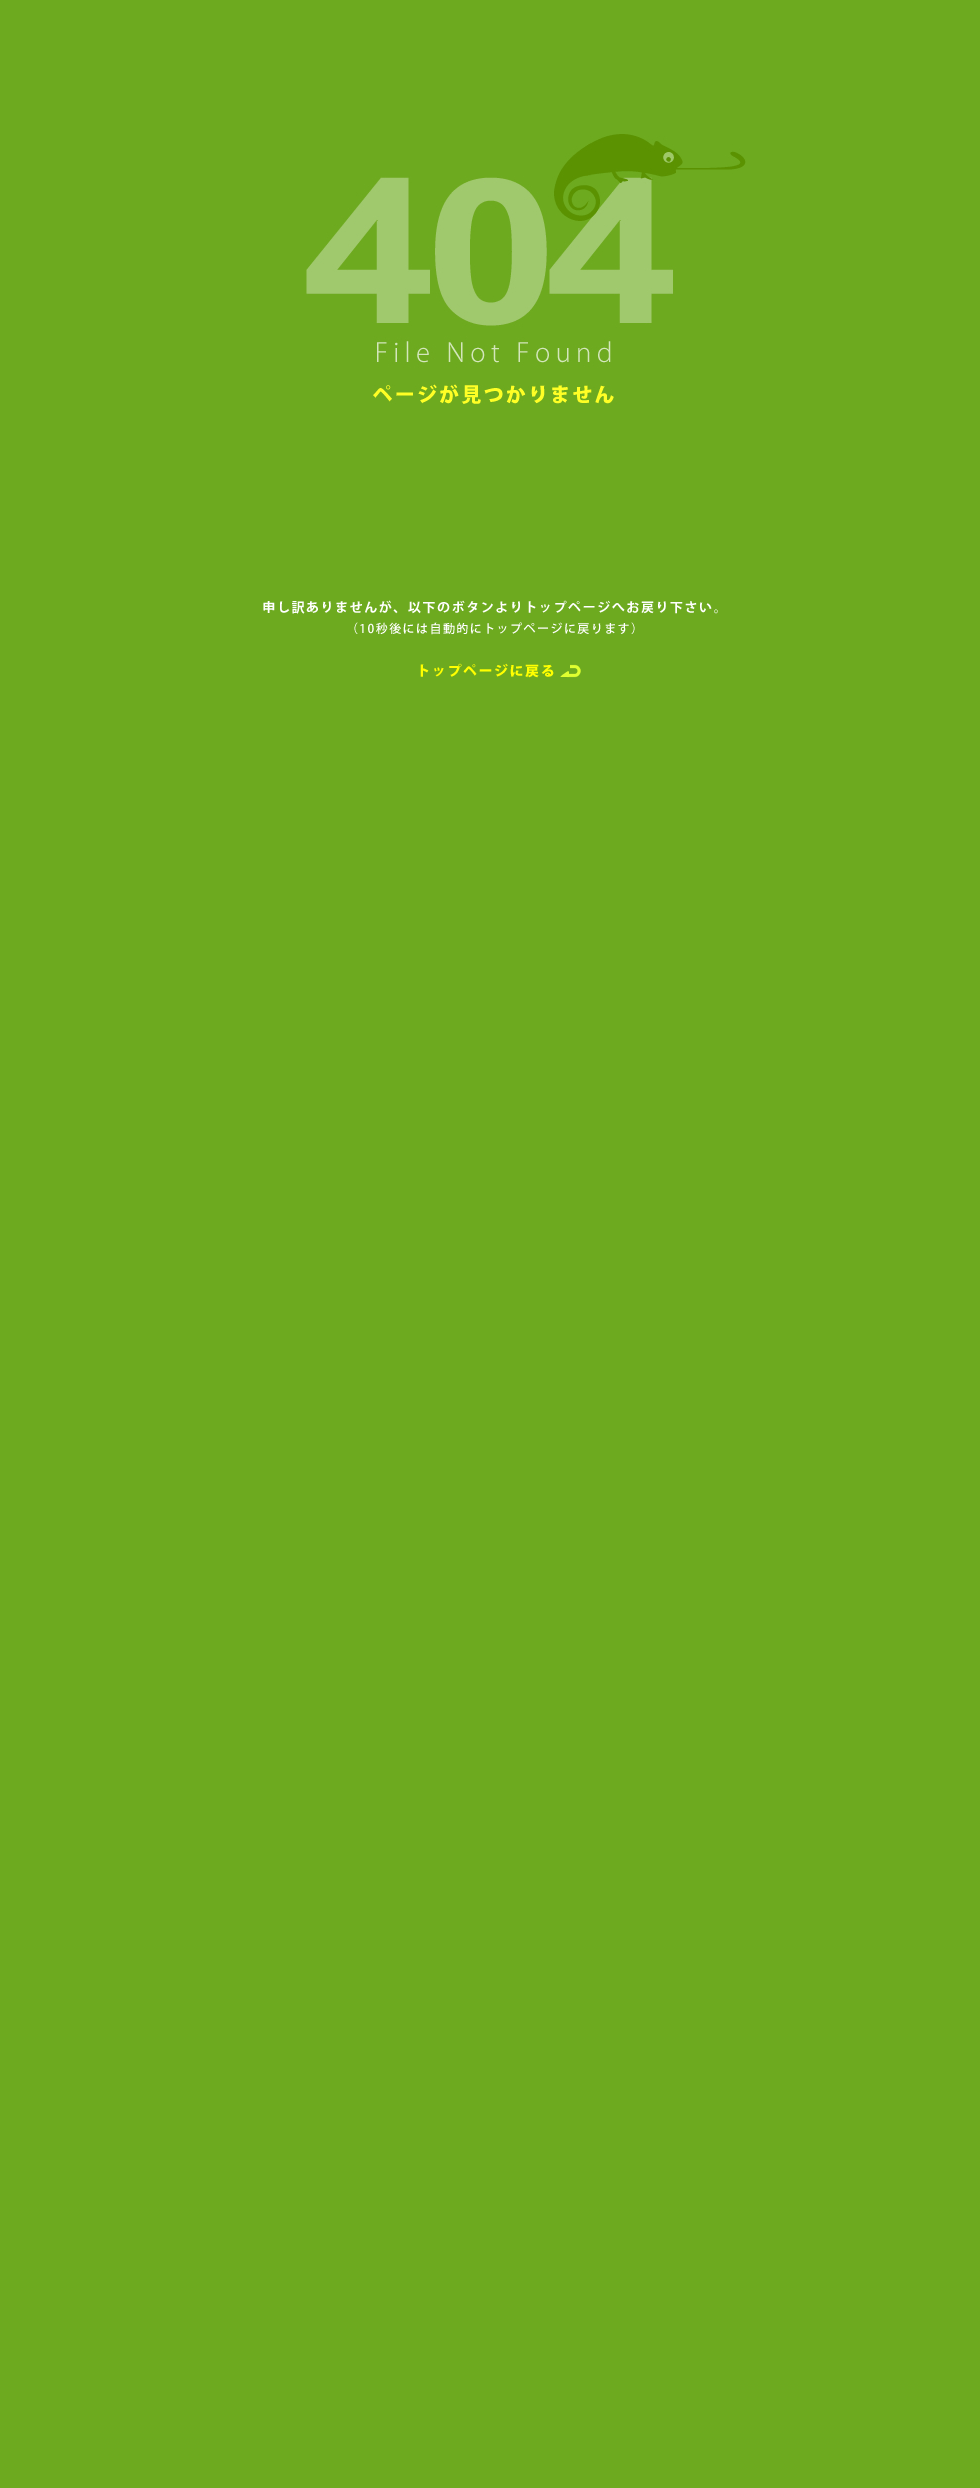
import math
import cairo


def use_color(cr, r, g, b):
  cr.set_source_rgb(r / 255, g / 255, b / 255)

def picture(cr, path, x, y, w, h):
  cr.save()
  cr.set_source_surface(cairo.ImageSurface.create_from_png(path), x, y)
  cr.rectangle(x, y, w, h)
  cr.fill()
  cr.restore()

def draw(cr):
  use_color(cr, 109, 170, 31)
  cr.paint()
  picture(cr, "img_01.png", 306, 134, 440, 270)
  picture(cr, "img_02.png", 263, 600, 455, 35)
  picture(cr, "img_03.png", 420, 663, 161, 15)


surface = cairo.ImageSurface(cairo.FORMAT_RGB24, 980, 2488)
cr = cairo.Context(surface)
options = cairo.FontOptions()
options.set_hint_metrics(cairo.HINT_METRICS_OFF)
options.set_hint_style(cairo.HINT_STYLE_NONE)
cr.set_font_options(options)
cr.set_miter_limit(4)
draw(cr)
surface.write_to_png("out.png")
